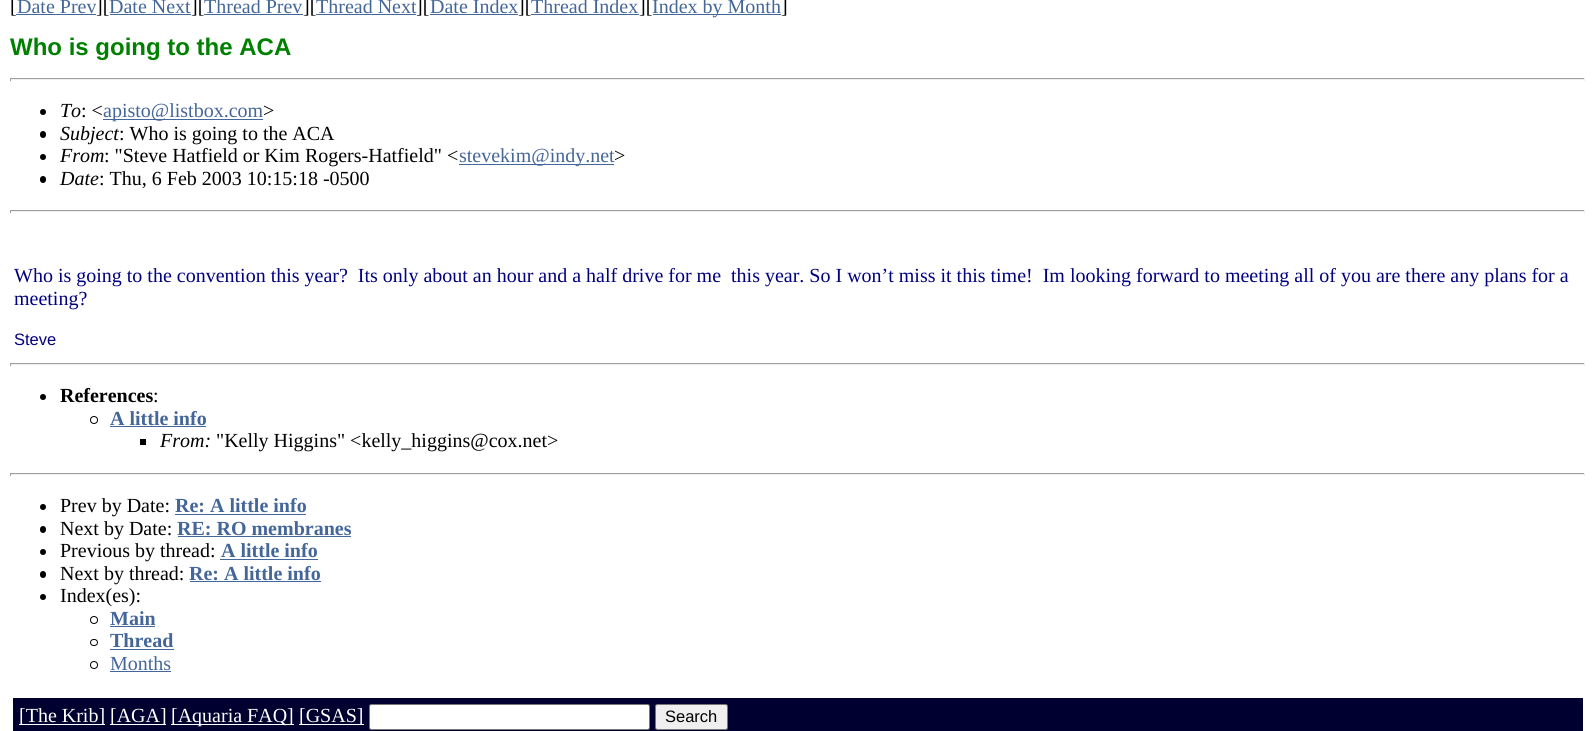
import math
import cairo


def use_color(cr, r, g, b):
  cr.set_source_rgb(r / 255, g / 255, b / 255)

def text(cr, x, y, s, family, size, color, bold=False, italic=False):
  cr.select_font_face(family, cairo.FONT_SLANT_ITALIC if italic else cairo.FONT_SLANT_NORMAL, cairo.FONT_WEIGHT_BOLD if bold else cairo.FONT_WEIGHT_NORMAL)
  cr.set_font_size(size)
  use_color(cr, *color)
  cr.move_to(x, y)
  cr.show_text(s)

def box(cr, x, y, w, h, *color):
  use_color(cr, *color)
  cr.rectangle(x, y, w, h)
  cr.fill()

def round_rect(cr, x, y, w, h, r):
  cr.new_sub_path()
  for i, (u, v) in enumerate([(x + w - r, y + h - r), (x + r, y + h - r), (x + r, y + r), (x + w - r, y + r)]):
    cr.arc(u, v, r, i * math.pi / 2, (i + 1) * math.pi / 2)
  cr.close_path()

def draw(cr):
  use_color(cr, 255, 255, 255)
  cr.paint()
  box(cr, 16, 14, 80, 1, 68, 102, 153)
  box(cr, 110, 14, 81, 1, 68, 102, 153)
  box(cr, 204, 14, 99, 1, 68, 102, 153)
  box(cr, 316, 14, 100, 1, 68, 102, 153)
  box(cr, 430, 14, 88, 1, 68, 102, 153)
  box(cr, 531, 14, 108, 1, 68, 102, 153)
  box(cr, 653, 14, 128, 1, 68, 102, 153)
  box(cr, 10, 78, 1575, 1, 159, 159, 159)
  box(cr, 1584, 78, 1, 3, 238, 238, 238)
  box(cr, 10, 79, 1575, 1, 238, 238, 238)
  box(cr, 10, 78, 1, 3, 159, 159, 159)
  use_color(cr, 0, 0, 0)
  cr.arc(43, 112, 3, 0, 2 * math.pi)
  cr.fill()
  box(cr, 103, 119, 160, 1, 68, 102, 153)
  use_color(cr, 0, 0, 0)
  round_rect(cr, 40, 131, 6, 7, 3)
  cr.fill()
  cr.arc(43, 157, 3, 0, 2 * math.pi)
  cr.fill()
  box(cr, 459, 164, 155, 1, 68, 102, 153)
  use_color(cr, 0, 0, 0)
  round_rect(cr, 40, 176, 6, 7, 3)
  cr.fill()
  box(cr, 10, 210, 1575, 1, 159, 159, 159)
  box(cr, 1584, 210, 1, 3, 238, 238, 238)
  box(cr, 10, 211, 1575, 1, 238, 238, 238)
  box(cr, 10, 210, 1, 3, 159, 159, 159)
  box(cr, 10, 363, 1575, 1, 159, 159, 159)
  box(cr, 1584, 363, 1, 3, 238, 238, 238)
  box(cr, 10, 364, 1575, 1, 238, 238, 238)
  box(cr, 10, 363, 1, 3, 159, 159, 159)
  use_color(cr, 0, 0, 0)
  cr.arc(43, 397, 3, 0, 2 * math.pi)
  cr.fill()
  cr.arc(94, 420, 3.5, 0, 2 * math.pi)
  cr.set_line_width(1)
  cr.stroke()
  box(cr, 110, 426, 96, 1, 68, 102, 153)
  box(cr, 140, 439, 6, 6, 0, 0, 0)
  box(cr, 10, 473, 1575, 1, 159, 159, 159)
  box(cr, 1584, 473, 1, 3, 238, 238, 238)
  box(cr, 10, 474, 1575, 1, 238, 238, 238)
  box(cr, 10, 473, 1, 3, 159, 159, 159)
  use_color(cr, 0, 0, 0)
  cr.arc(43, 507, 3, 0, 2 * math.pi)
  cr.fill()
  box(cr, 175, 514, 131, 1, 68, 102, 153)
  use_color(cr, 0, 0, 0)
  round_rect(cr, 40, 526, 6, 7, 3)
  cr.fill()
  box(cr, 178, 536, 173, 1, 68, 102, 153)
  use_color(cr, 0, 0, 0)
  cr.arc(43, 552, 3, 0, 2 * math.pi)
  cr.fill()
  box(cr, 220, 559, 98, 1, 68, 102, 153)
  use_color(cr, 0, 0, 0)
  round_rect(cr, 40, 571, 6, 7, 3)
  cr.fill()
  box(cr, 190, 581, 131, 1, 68, 102, 153)
  use_color(cr, 0, 0, 0)
  cr.arc(43, 597, 3, 0, 2 * math.pi)
  cr.fill()
  cr.arc(94, 620, 3.5, 0, 2 * math.pi)
  cr.stroke()
  box(cr, 110, 626, 45, 1, 68, 102, 153)
  round_rect(cr, 90.5, 639.5, 7, 6, 3)
  use_color(cr, 0, 0, 0)
  cr.stroke()
  box(cr, 110, 649, 64, 1, 68, 102, 153)
  cr.arc(94, 665, 3.5, 0, 2 * math.pi)
  use_color(cr, 0, 0, 0)
  cr.stroke()
  box(cr, 110, 671, 61, 1, 68, 102, 153)
  box(cr, 13, 698, 1570, 33, 0, 0, 48)
  box(cr, 19, 724, 86, 1, 255, 255, 255)
  box(cr, 110, 724, 56, 1, 255, 255, 255)
  box(cr, 171, 724, 123, 1, 255, 255, 255)
  box(cr, 299, 724, 65, 1, 255, 255, 255)
  round_rect(cr, 369.5, 704.5, 280, 25, 2)
  cr.fill_preserve()
  use_color(cr, 118, 118, 118)
  cr.stroke()
  use_color(cr, 239, 239, 239)
  round_rect(cr, 655.5, 704.5, 72, 25, 2)
  cr.fill_preserve()
  use_color(cr, 118, 118, 118)
  cr.stroke()
  text(cr, 10, 13, "[", "Liberation Serif", 20, (0, 0, 0))
  text(cr, 17, 13, "Date Prev", "Liberation Serif", 20, (68, 102, 153))
  text(cr, 96, 13, "][", "Liberation Serif", 20, (0, 0, 0))
  text(cr, 109, 13, "Date Next", "Liberation Serif", 20, (68, 102, 153))
  text(cr, 191, 13, "][", "Liberation Serif", 20, (0, 0, 0))
  text(cr, 204, 13, "Thread Prev", "Liberation Serif", 20, (68, 102, 153))
  text(cr, 303, 13, "][", "Liberation Serif", 20, (0, 0, 0))
  text(cr, 316, 13, "Thread Next", "Liberation Serif", 20, (68, 102, 153))
  text(cr, 416, 13, "][", "Liberation Serif", 20, (0, 0, 0))
  text(cr, 430, 13, "Date Index", "Liberation Serif", 20, (68, 102, 153))
  text(cr, 518, 13, "][", "Liberation Serif", 20, (0, 0, 0))
  text(cr, 531, 13, "Thread Index", "Liberation Serif", 20, (68, 102, 153))
  text(cr, 639, 13, "][", "Liberation Serif", 20, (0, 0, 0))
  text(cr, 652, 13, "Index by Month", "Liberation Serif", 20, (68, 102, 153))
  text(cr, 781, 13, "]", "Liberation Serif", 20, (0, 0, 0))
  text(cr, 10, 55, "Who is going to the ACA", "Liberation Sans", 24, (0, 128, 0), bold=True)
  text(cr, 60, 117, "To", "Liberation Serif", 20, (0, 0, 0), italic=True)
  text(cr, 81, 117, ": <", "Liberation Serif", 20, (0, 0, 0))
  text(cr, 103, 117, "apisto@listbox.com", "Liberation Serif", 20, (68, 102, 153))
  text(cr, 263, 117, ">", "Liberation Serif", 20, (0, 0, 0))
  text(cr, 60, 140, "Subject", "Liberation Serif", 20, (0, 0, 0), italic=True)
  text(cr, 119, 140, ": Who is going to the ACA", "Liberation Serif", 20, (0, 0, 0))
  text(cr, 60, 162, "From", "Liberation Serif", 20, (0, 0, 0), italic=True)
  text(cr, 104, 162, ": \"Steve Hatfield or Kim Rogers-Hatfield\" <", "Liberation Serif", 20, (0, 0, 0))
  text(cr, 459, 162, "stevekim@indy.net", "Liberation Serif", 20, (68, 102, 153))
  text(cr, 614, 162, ">", "Liberation Serif", 20, (0, 0, 0))
  text(cr, 60, 185, "Date", "Liberation Serif", 20, (0, 0, 0), italic=True)
  text(cr, 99, 185, ": Thu, 6 Feb 2003 10:15:18 -0500", "Liberation Serif", 20, (0, 0, 0))
  text(cr, 14, 282, "Who is going to the convention this year?  Its only about an hour and a half drive for me  this year. So I won’t miss it this time!  Im looking forward to meeting all of you are there any plans for a", "Liberation Serif", 20, (0, 0, 128))
  text(cr, 14, 305, "meeting?", "Liberation Serif", 20, (0, 0, 128))
  text(cr, 14, 345, "Steve", "Liberation Sans", 16.5, (0, 0, 128))
  text(cr, 60, 402, "References", "Liberation Serif", 20, (0, 0, 0), bold=True)
  text(cr, 153, 402, ":", "Liberation Serif", 20, (0, 0, 0))
  text(cr, 110, 425, "A little info", "Liberation Serif", 20, (68, 102, 153), bold=True)
  text(cr, 160, 447, "From:", "Liberation Serif", 20, (0, 0, 0), italic=True)
  text(cr, 216, 447, "\"Kelly Higgins\" <kelly_higgins@cox.net>", "Liberation Serif", 20, (0, 0, 0))
  text(cr, 60, 512, "Prev by Date:", "Liberation Serif", 20, (0, 0, 0))
  text(cr, 175, 512, "Re: A little info", "Liberation Serif", 20, (68, 102, 153), bold=True)
  text(cr, 60, 535, "Next by Date:", "Liberation Serif", 20, (0, 0, 0))
  text(cr, 177, 535, "RE: RO membranes", "Liberation Serif", 20, (68, 102, 153), bold=True)
  text(cr, 60, 557, "Previous by thread:", "Liberation Serif", 20, (0, 0, 0))
  text(cr, 221, 557, "A little info", "Liberation Serif", 20, (68, 102, 153), bold=True)
  text(cr, 60, 580, "Next by thread:", "Liberation Serif", 20, (0, 0, 0))
  text(cr, 189, 580, "Re: A little info", "Liberation Serif", 20, (68, 102, 153), bold=True)
  text(cr, 60, 602, "Index(es):", "Liberation Serif", 20, (0, 0, 0))
  text(cr, 110, 625, "Main", "Liberation Serif", 20, (68, 102, 153), bold=True)
  text(cr, 110, 647, "Thread", "Liberation Serif", 20, (68, 102, 153), bold=True)
  text(cr, 110, 670, "Months", "Liberation Serif", 20, (68, 102, 153))
  text(cr, 19, 722, "[The Krib]", "Liberation Serif", 20, (255, 255, 255))
  text(cr, 110, 722, "[AGA]", "Liberation Serif", 20, (255, 255, 255))
  text(cr, 171, 722, "[Aquaria FAQ]", "Liberation Serif", 20, (255, 255, 255))
  text(cr, 299, 722, "[GSAS]", "Liberation Serif", 20, (255, 255, 255))
  text(cr, 665, 722, "Search", "Liberation Sans", 16.5, (0, 0, 0))


surface = cairo.ImageSurface(cairo.FORMAT_RGB24, 1594, 731)
cr = cairo.Context(surface)
options = cairo.FontOptions()
options.set_hint_metrics(cairo.HINT_METRICS_OFF)
options.set_hint_style(cairo.HINT_STYLE_NONE)
cr.set_font_options(options)
cr.set_miter_limit(4)
draw(cr)
surface.write_to_png("out.png")
